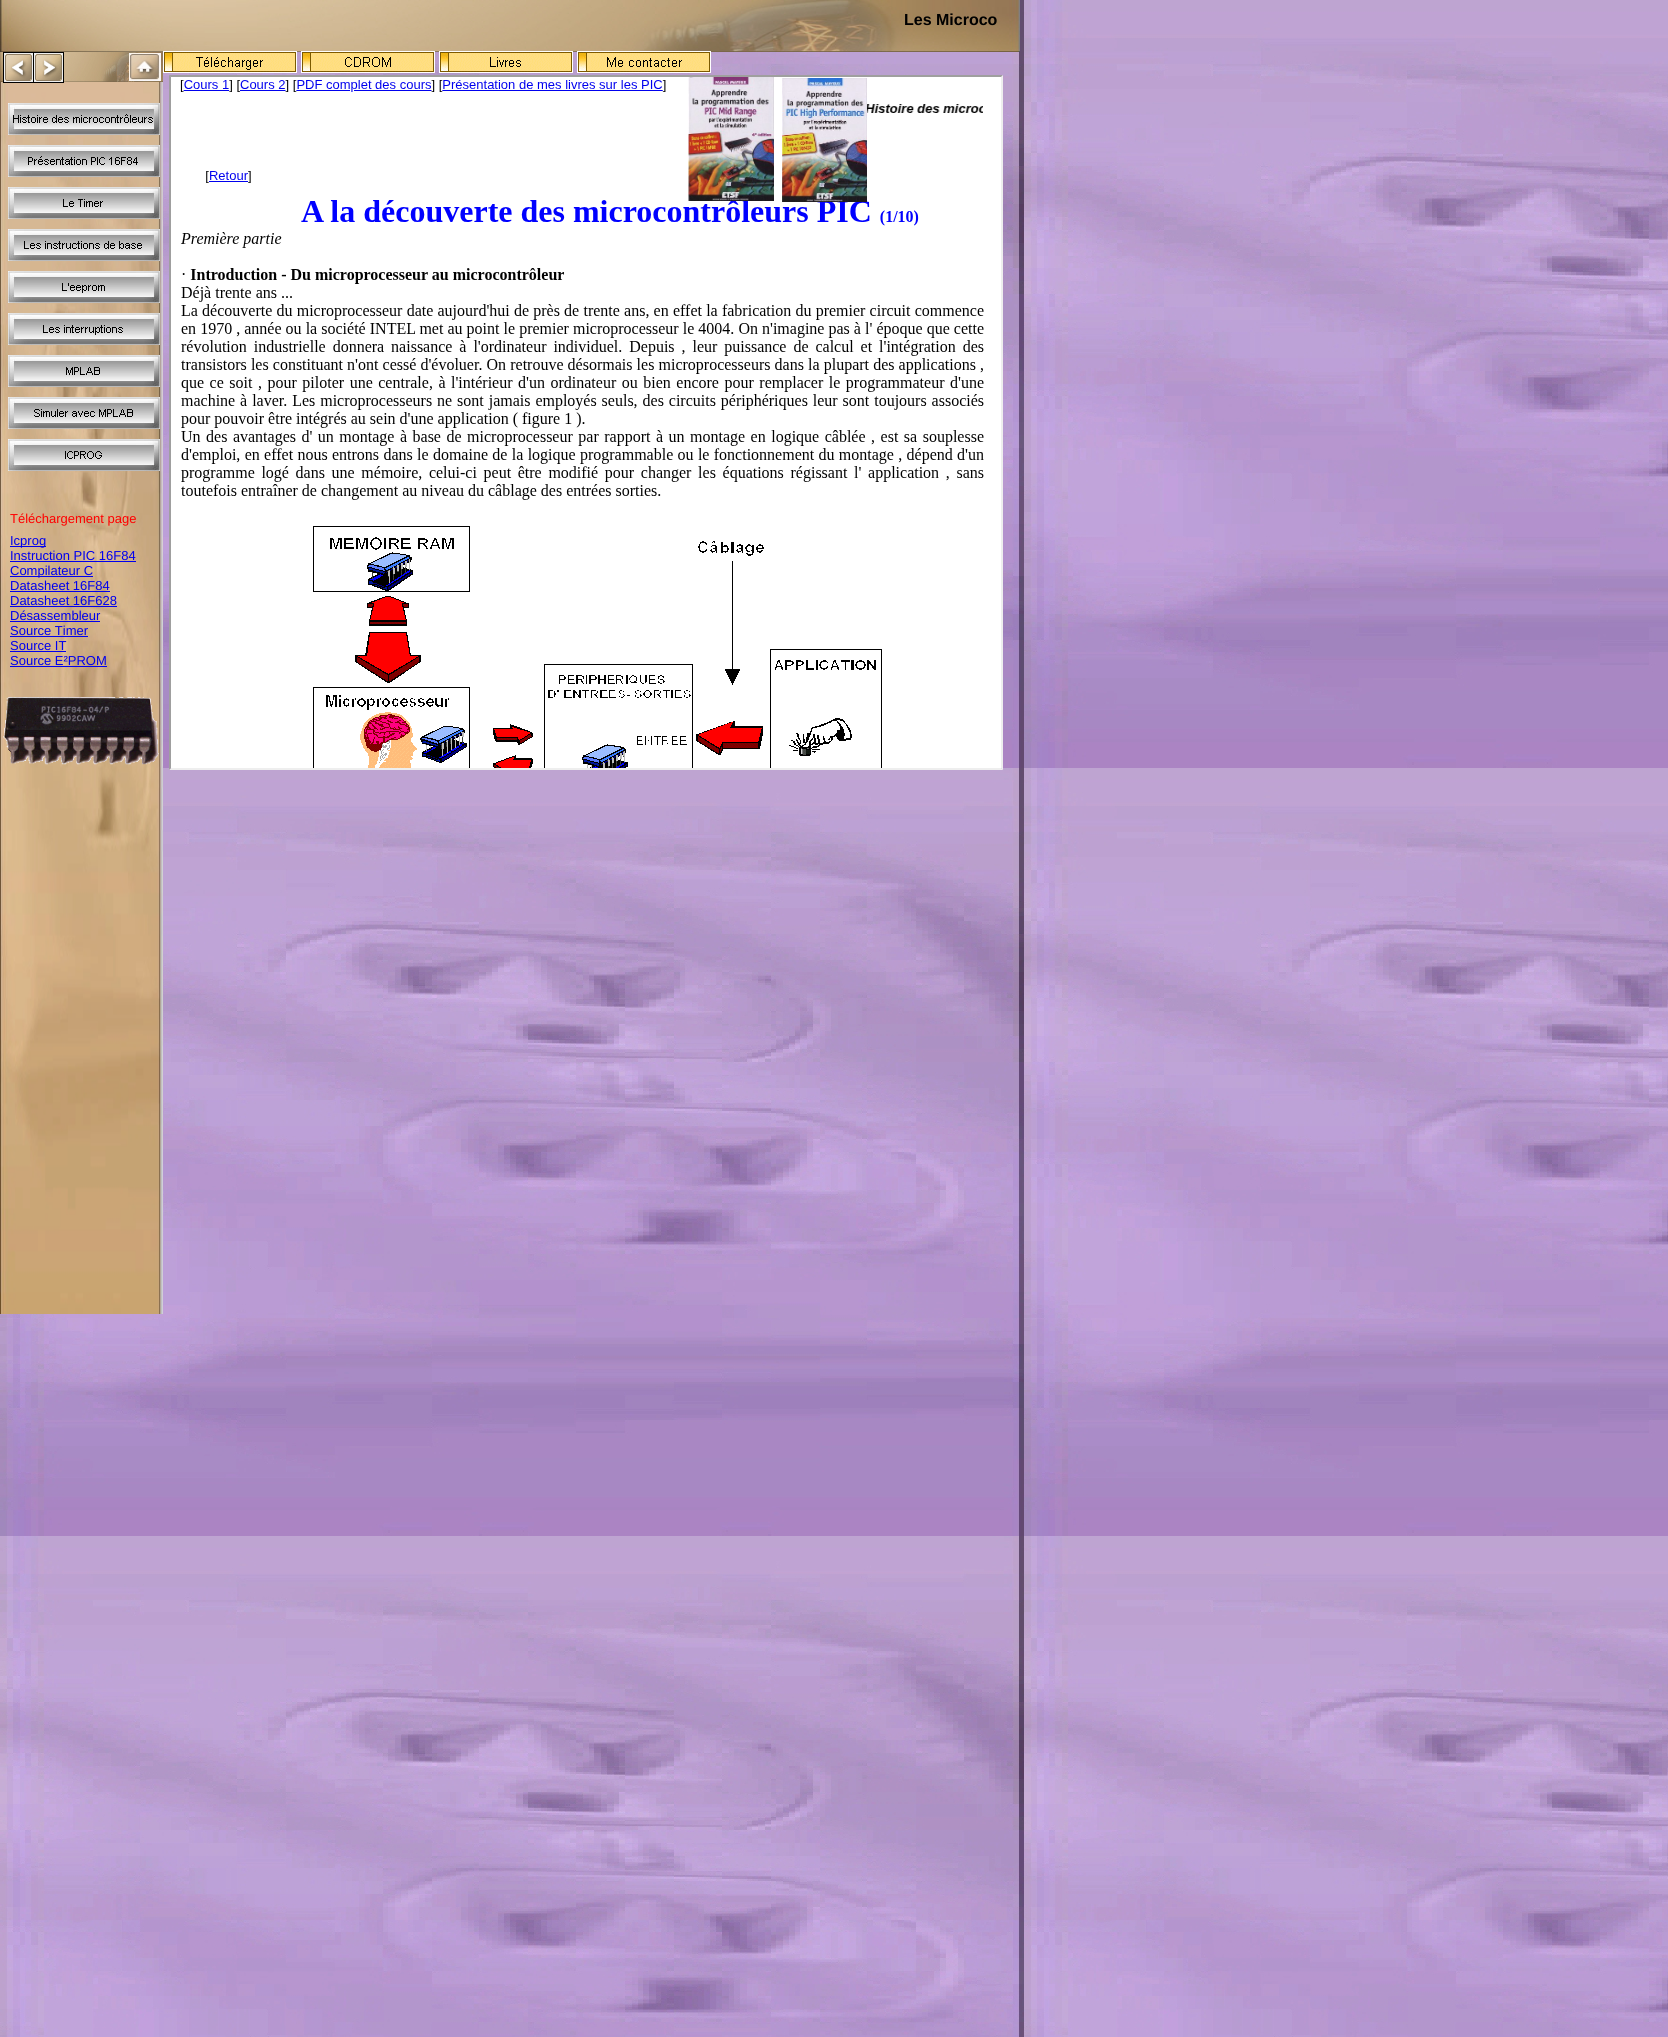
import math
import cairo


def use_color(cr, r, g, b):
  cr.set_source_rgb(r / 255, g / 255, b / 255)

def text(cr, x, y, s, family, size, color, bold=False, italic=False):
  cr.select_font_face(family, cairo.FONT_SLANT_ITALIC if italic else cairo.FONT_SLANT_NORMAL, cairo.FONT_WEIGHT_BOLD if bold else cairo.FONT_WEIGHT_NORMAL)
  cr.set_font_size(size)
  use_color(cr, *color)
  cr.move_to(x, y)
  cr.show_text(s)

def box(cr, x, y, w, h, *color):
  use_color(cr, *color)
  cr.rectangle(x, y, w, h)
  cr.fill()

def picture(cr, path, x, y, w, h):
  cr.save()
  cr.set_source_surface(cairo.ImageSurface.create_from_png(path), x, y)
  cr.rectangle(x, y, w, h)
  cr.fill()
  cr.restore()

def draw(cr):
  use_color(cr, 255, 255, 255)
  cr.paint()
  picture(cr, "img_01.png", 0, 0, 1668, 2037)
  picture(cr, "img_02.png", 0, 0, 1020, 52)
  picture(cr, "img_03.png", 0, 52, 163, 30)
  picture(cr, "img_04.png", 163, 51, 134, 22)
  picture(cr, "img_05.png", 301, 51, 134, 22)
  picture(cr, "img_06.png", 439, 51, 134, 22)
  picture(cr, "img_07.png", 577, 51, 134, 22)
  box(cr, 4, 53, 29, 29, 239, 239, 239)
  picture(cr, "img_08.png", 5, 54, 27, 27)
  picture(cr, "img_11.png", 0, 82, 163, 1232)
  cr.rectangle(3.5, 52.5, 32, 30)
  use_color(cr, 0, 0, 0)
  cr.set_line_width(1)
  cr.stroke()
  box(cr, 34, 53, 29, 29, 239, 239, 239)
  picture(cr, "img_09.png", 35, 54, 27, 27)
  cr.rectangle(33.5, 52.5, 30, 30)
  use_color(cr, 0, 0, 0)
  cr.stroke()
  picture(cr, "img_10.png", 129, 53, 32, 28)
  use_color(cr, 159, 159, 159)
  cr.new_path()
  cr.move_to(169, 75)
  cr.line_to(1003, 75)
  cr.line_to(1001, 77)
  cr.line_to(171, 77)
  cr.close_path()
  cr.fill()
  use_color(cr, 238, 238, 238)
  cr.new_path()
  cr.move_to(1003, 75)
  cr.line_to(1003, 770)
  cr.line_to(1001, 768)
  cr.line_to(1001, 77)
  cr.close_path()
  cr.fill()
  cr.new_path()
  cr.move_to(1003, 770)
  cr.line_to(169, 770)
  cr.line_to(171, 768)
  cr.line_to(1001, 768)
  cr.close_path()
  cr.fill()
  use_color(cr, 159, 159, 159)
  cr.new_path()
  cr.move_to(169, 770)
  cr.line_to(169, 75)
  cr.line_to(171, 77)
  cr.line_to(171, 768)
  cr.close_path()
  cr.fill()
  picture(cr, "img_12.png", 171, 77, 830, 691)
  picture(cr, "img_13.png", 8, 103, 152, 32)
  picture(cr, "img_14.png", 8, 145, 152, 32)
  picture(cr, "img_15.png", 8, 187, 152, 32)
  picture(cr, "img_16.png", 8, 229, 152, 32)
  picture(cr, "img_17.png", 8, 271, 152, 32)
  picture(cr, "img_18.png", 8, 313, 152, 32)
  picture(cr, "img_19.png", 8, 355, 152, 32)
  picture(cr, "img_20.png", 8, 397, 152, 32)
  picture(cr, "img_21.png", 8, 439, 152, 32)
  box(cr, 10, 546, 36, 1, 0, 0, 238)
  box(cr, 10, 561, 126, 1, 0, 0, 238)
  box(cr, 10, 576, 83, 1, 0, 0, 238)
  box(cr, 10, 591, 100, 1, 0, 0, 238)
  box(cr, 10, 606, 107, 1, 0, 0, 238)
  box(cr, 10, 621, 90, 1, 0, 0, 238)
  box(cr, 10, 636, 78, 1, 0, 0, 238)
  box(cr, 10, 651, 56, 1, 0, 0, 238)
  box(cr, 10, 666, 97, 1, 0, 0, 238)
  picture(cr, "img_22.png", 3, 697, 156, 68)
  text(cr, 904, 25, "Les Microco", "Liberation Sans", 16, (0, 0, 0), bold=True)
  text(cr, 10, 523, "Téléchargement page", "Liberation Sans", 13, (255, 0, 0))
  text(cr, 10, 545, "Icprog", "Liberation Sans", 13, (0, 0, 238))
  text(cr, 10, 560, "Instruction PIC 16F84", "Liberation Sans", 13, (0, 0, 238))
  text(cr, 10, 575, "Compilateur C", "Liberation Sans", 13, (0, 0, 238))
  text(cr, 10, 590, "Datasheet 16F84", "Liberation Sans", 13, (0, 0, 238))
  text(cr, 10, 605, "Datasheet 16F628", "Liberation Sans", 13, (0, 0, 238))
  text(cr, 10, 620, "Désassembleur", "Liberation Sans", 13, (0, 0, 238))
  text(cr, 10, 635, "Source Timer", "Liberation Sans", 13, (0, 0, 238))
  text(cr, 10, 650, "Source IT", "Liberation Sans", 13, (0, 0, 238))
  text(cr, 10, 665, "Source E²PROM", "Liberation Sans", 13, (0, 0, 238))


surface = cairo.ImageSurface(cairo.FORMAT_RGB24, 1668, 2037)
cr = cairo.Context(surface)
options = cairo.FontOptions()
options.set_hint_metrics(cairo.HINT_METRICS_OFF)
options.set_hint_style(cairo.HINT_STYLE_NONE)
cr.set_font_options(options)
cr.set_miter_limit(4)
draw(cr)
surface.write_to_png("out.png")
